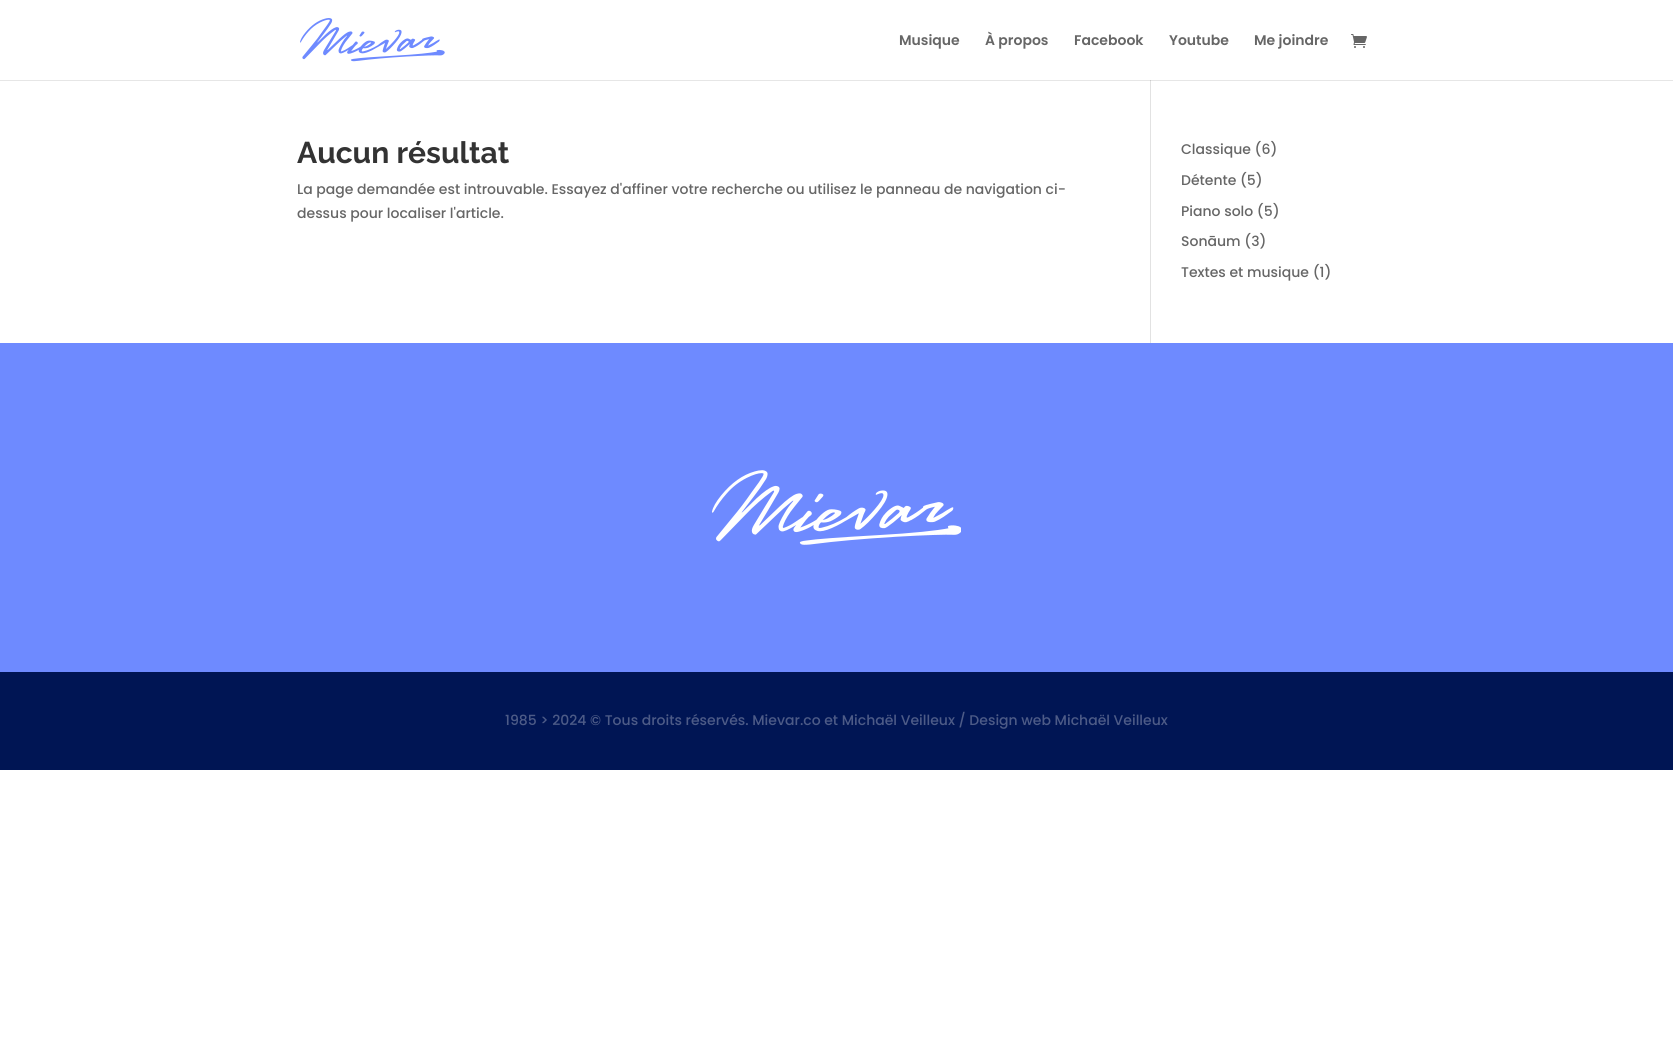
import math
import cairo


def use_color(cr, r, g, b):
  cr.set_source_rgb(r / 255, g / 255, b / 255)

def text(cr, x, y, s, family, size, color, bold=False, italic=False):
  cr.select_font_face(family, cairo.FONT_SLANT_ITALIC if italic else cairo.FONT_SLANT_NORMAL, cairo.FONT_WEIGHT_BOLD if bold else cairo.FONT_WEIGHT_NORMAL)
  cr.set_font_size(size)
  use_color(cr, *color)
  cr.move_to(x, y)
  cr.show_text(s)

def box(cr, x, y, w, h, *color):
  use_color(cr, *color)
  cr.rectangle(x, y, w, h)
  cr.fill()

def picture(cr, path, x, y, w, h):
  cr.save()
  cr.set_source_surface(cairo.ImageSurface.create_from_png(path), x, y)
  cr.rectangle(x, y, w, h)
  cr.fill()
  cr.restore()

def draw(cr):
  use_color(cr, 255, 255, 255)
  cr.paint()
  box(cr, 0, 80, 1673, 1, 230, 230, 230)
  picture(cr, "img_01.png", 300, 18, 145, 44)
  picture(cr, "img_02.png", 1351, 34, 16, 14)
  box(cr, 1150, 80, 1, 263, 226, 226, 226)
  box(cr, 1150, 80, 1, 1, 203, 203, 203)
  box(cr, 0, 343, 1673, 329, 110, 138, 255)
  picture(cr, "img_03.png", 712, 470, 249, 75)
  box(cr, 0, 672, 1673, 98, 0, 21, 84)
  text(cr, 899, 45, "Musique", "Poppins SemiBold", 14, (102, 102, 102))
  text(cr, 985, 45, "À propos", "Poppins SemiBold", 14, (102, 102, 102))
  text(cr, 1074, 45, "Facebook", "Poppins SemiBold", 14, (102, 102, 102))
  text(cr, 1169, 45, "Youtube", "Poppins SemiBold", 14, (102, 102, 102))
  text(cr, 1254, 45, "Me joindre", "Poppins SemiBold", 14, (102, 102, 102))
  text(cr, 297, 163, "Aucun résultat", "Raleway Thin", 30, (51, 51, 51))
  text(cr, 297, 194, "La page demandée est introuvable. Essayez d'affiner votre recherche ou utilisez le panneau de navigation ci-", "Poppins Medium", 14, (102, 102, 102))
  text(cr, 297, 218, "dessus pour localiser l'article.", "Poppins Medium", 14, (102, 102, 102))
  text(cr, 1181, 154, "Classique (6)", "Poppins Medium", 14, (102, 102, 102))
  text(cr, 1181, 185, "Détente (5)", "Poppins Medium", 14, (102, 102, 102))
  text(cr, 1181, 216, "Piano solo (5)", "Poppins Medium", 14, (102, 102, 102))
  text(cr, 1181, 246, "Sonāum (3)", "Poppins Medium", 14, (102, 102, 102))
  text(cr, 1181, 277, "Textes et musique (1)", "Poppins Medium", 14, (102, 102, 102))
  text(cr, 505, 725, "1985 > 2024 © Tous droits réservés. Mievar.co et Michaël Veilleux / Design web Michaël Veilleux", "Poppins Medium", 14, (77, 91, 135))


surface = cairo.ImageSurface(cairo.FORMAT_RGB24, 1673, 1050)
cr = cairo.Context(surface)
options = cairo.FontOptions()
options.set_hint_metrics(cairo.HINT_METRICS_OFF)
options.set_hint_style(cairo.HINT_STYLE_NONE)
cr.set_font_options(options)
cr.set_miter_limit(4)
draw(cr)
surface.write_to_png("out.png")
